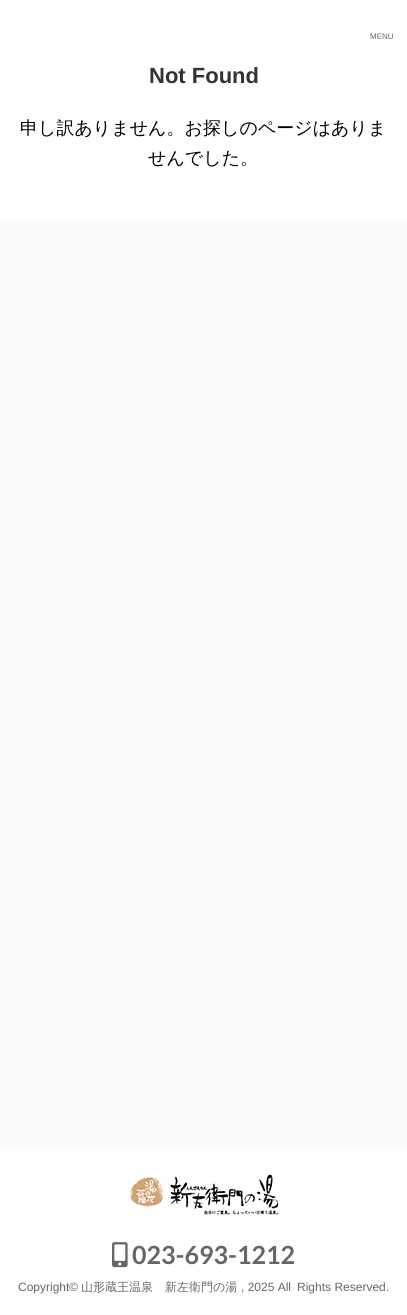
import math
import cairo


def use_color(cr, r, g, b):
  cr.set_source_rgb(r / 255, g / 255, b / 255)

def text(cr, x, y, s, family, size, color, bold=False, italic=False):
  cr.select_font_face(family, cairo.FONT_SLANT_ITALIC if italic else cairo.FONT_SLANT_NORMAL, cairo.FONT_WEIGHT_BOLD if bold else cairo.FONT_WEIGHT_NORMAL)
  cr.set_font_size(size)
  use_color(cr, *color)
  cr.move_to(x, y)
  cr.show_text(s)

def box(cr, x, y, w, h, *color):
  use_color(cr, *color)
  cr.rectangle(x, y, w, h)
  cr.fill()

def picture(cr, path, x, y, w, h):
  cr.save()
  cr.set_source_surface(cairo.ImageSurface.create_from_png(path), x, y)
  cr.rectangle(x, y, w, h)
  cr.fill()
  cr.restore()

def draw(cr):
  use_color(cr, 250, 250, 250)
  cr.paint()
  box(cr, 0, 0, 407, 223, 255, 255, 255)
  box(cr, 0, 1149, 407, 165, 255, 255, 255)
  picture(cr, "img_01.png", 129, 1174, 150, 41)
  picture(cr, "img_02.png", 112, 1242, 16, 26)
  text(cr, 370, 39, "MENU", "Liberation Sans", 8, (102, 102, 102))
  text(cr, 149, 83, "Not Found", "Liberation Sans", 22, (51, 51, 51), bold=True)
  text(cr, 20, 134, "申し訳ありません。お探しのページはありま", "WenQuanYi Zen Hei Medium", 18, (0, 0, 0))
  text(cr, 148, 164, "せんでした。", "WenQuanYi Zen Hei Medium", 18, (0, 0, 0))
  text(cr, 132, 1264, "023-693-1212", "Lato", 25, (102, 102, 102), bold=True)
  text(cr, 18, 1291, "Copyright©", "Liberation Sans", 12, (102, 102, 102))
  text(cr, 81, 1291, "山形蔵王温泉　新左衛門の湯", "WenQuanYi Zen Hei Medium", 12, (102, 102, 102))
  text(cr, 241, 1291, ", 2025 All Rights Reserved.", "Liberation Sans", 12, (102, 102, 102))


surface = cairo.ImageSurface(cairo.FORMAT_RGB24, 407, 1315)
cr = cairo.Context(surface)
options = cairo.FontOptions()
options.set_hint_metrics(cairo.HINT_METRICS_OFF)
options.set_hint_style(cairo.HINT_STYLE_NONE)
cr.set_font_options(options)
cr.set_miter_limit(4)
draw(cr)
surface.write_to_png("out.png")
